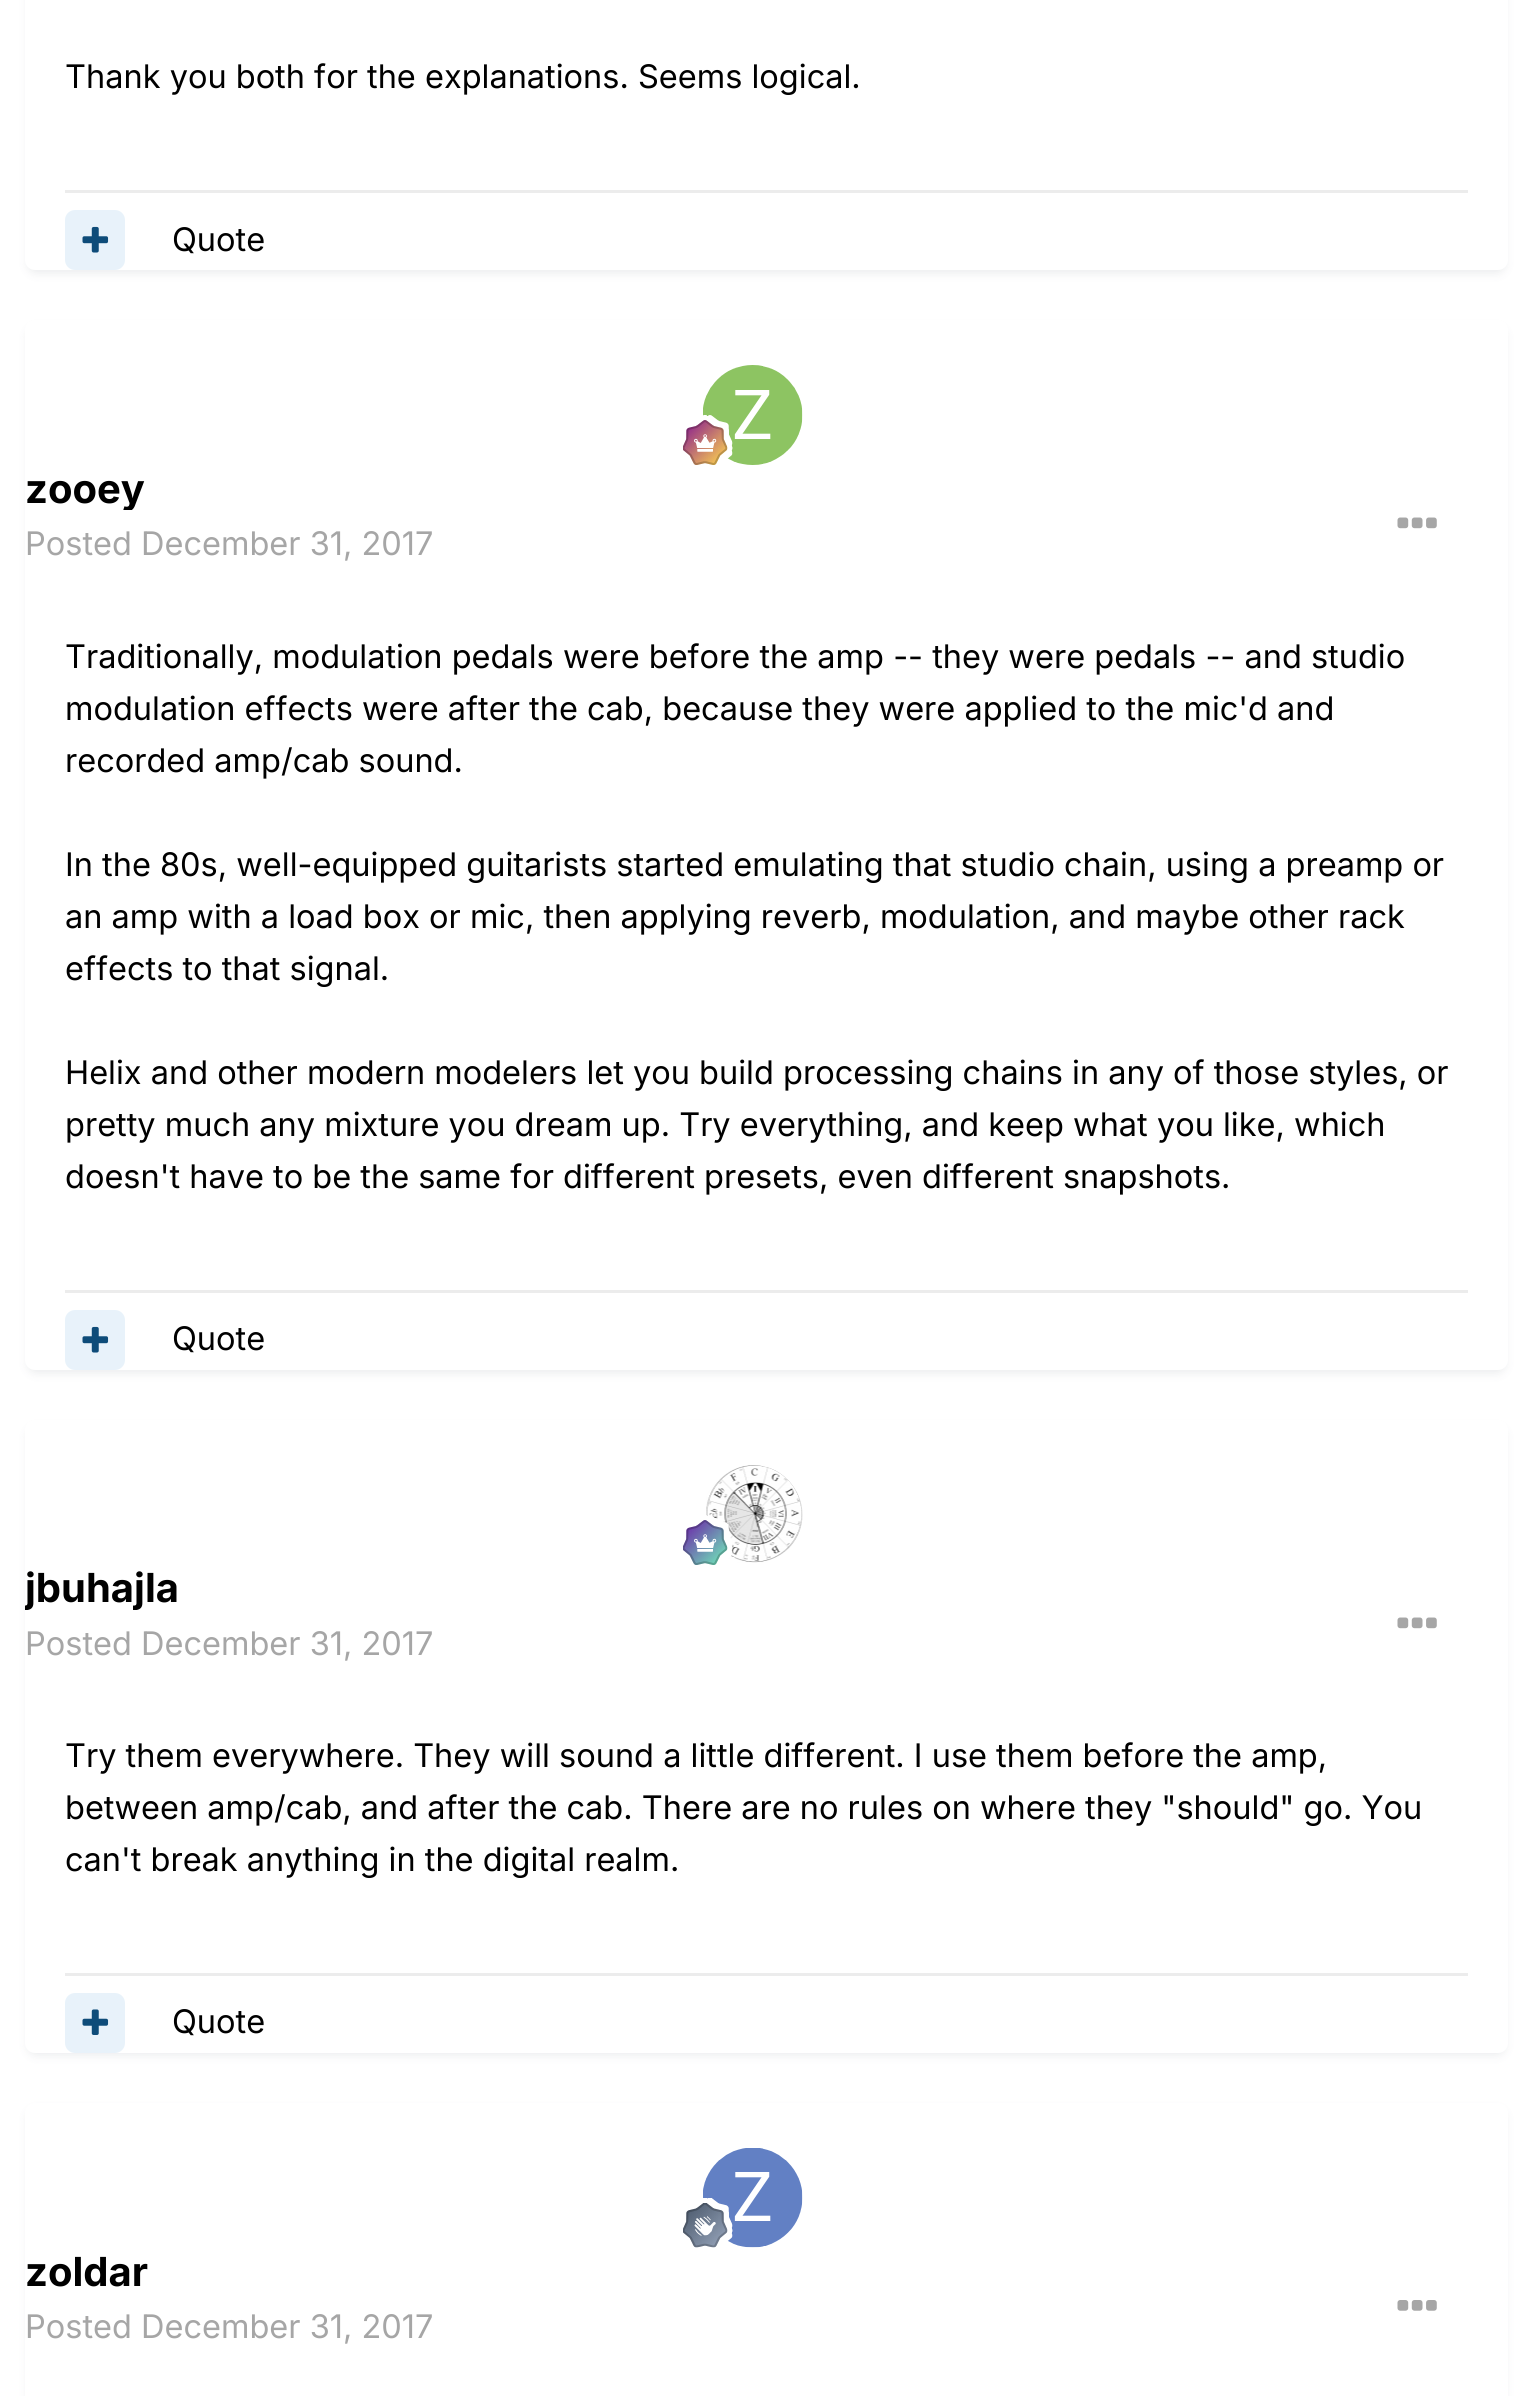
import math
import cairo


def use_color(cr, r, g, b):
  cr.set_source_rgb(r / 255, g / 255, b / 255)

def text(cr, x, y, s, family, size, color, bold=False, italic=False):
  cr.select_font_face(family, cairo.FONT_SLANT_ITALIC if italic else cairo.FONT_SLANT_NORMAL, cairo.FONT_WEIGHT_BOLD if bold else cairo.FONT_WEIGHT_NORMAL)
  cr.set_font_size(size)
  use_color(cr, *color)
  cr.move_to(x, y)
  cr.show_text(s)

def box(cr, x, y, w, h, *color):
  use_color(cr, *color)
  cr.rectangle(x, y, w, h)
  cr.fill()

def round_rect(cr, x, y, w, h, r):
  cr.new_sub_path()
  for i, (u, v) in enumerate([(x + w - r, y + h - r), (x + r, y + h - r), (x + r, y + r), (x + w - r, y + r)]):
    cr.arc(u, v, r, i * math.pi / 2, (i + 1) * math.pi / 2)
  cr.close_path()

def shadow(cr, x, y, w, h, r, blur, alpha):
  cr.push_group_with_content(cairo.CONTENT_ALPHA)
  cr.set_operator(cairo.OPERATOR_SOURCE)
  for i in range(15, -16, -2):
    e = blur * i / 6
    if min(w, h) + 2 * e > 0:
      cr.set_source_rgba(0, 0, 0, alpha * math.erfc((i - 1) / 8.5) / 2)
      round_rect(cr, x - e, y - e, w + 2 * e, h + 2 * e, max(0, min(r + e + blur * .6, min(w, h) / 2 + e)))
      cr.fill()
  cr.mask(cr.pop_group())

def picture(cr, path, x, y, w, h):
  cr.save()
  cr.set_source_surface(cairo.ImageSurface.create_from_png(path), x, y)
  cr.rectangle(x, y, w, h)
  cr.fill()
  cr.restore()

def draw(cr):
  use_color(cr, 255, 255, 255)
  cr.paint()
  use_color(cr, 45, 55, 72)
  shadow(cr, 28, -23, 1477, 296, 8, 5, 0.1)
  use_color(cr, 255, 255, 255)
  round_rect(cr, 25, -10, 1483, 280, 10)
  cr.fill()
  box(cr, 65, 190, 1403, 3, 236, 236, 236)
  use_color(cr, 232, 242, 250)
  round_rect(cr, 65, 210, 60, 60, 10)
  cr.fill()
  picture(cr, "img_01.png", 82, 226, 27, 27)
  use_color(cr, 45, 55, 72)
  shadow(cr, 28, 328, 1477, 1045, 8, 5, 0.1)
  use_color(cr, 255, 255, 255)
  round_rect(cr, 25, 320, 1483, 1050, 10)
  cr.fill()
  picture(cr, "img_02.png", 703, 365, 100, 100)
  picture(cr, "img_03.png", 683, 415, 50, 50)
  picture(cr, "img_04.png", 1397, 517, 40, 12)
  box(cr, 65, 1290, 1403, 3, 236, 236, 236)
  use_color(cr, 232, 242, 250)
  round_rect(cr, 65, 1310, 60, 60, 10)
  cr.fill()
  picture(cr, "img_01.png", 82, 1326, 27, 27)
  use_color(cr, 45, 55, 72)
  shadow(cr, 28, 1428, 1477, 627, 8, 5, 0.1)
  use_color(cr, 255, 255, 255)
  round_rect(cr, 25, 1420, 1483, 633, 10)
  cr.fill()
  picture(cr, "img_05.png", 706, 1465, 97, 98)
  picture(cr, "img_06.png", 683, 1515, 50, 50)
  picture(cr, "img_04.png", 1397, 1617, 40, 12)
  box(cr, 65, 1973, 1403, 3, 236, 236, 236)
  use_color(cr, 232, 242, 250)
  round_rect(cr, 65, 1993, 60, 60, 10)
  cr.fill()
  picture(cr, "img_07.png", 82, 2009, 27, 26)
  use_color(cr, 45, 55, 72)
  shadow(cr, 28, 2110, 1477, 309, 8, 5, 0.1)
  use_color(cr, 255, 255, 255)
  round_rect(cr, 25, 2103, 1483, 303, 10)
  cr.fill()
  picture(cr, "img_08.png", 703, 2148, 100, 100)
  picture(cr, "img_09.png", 683, 2198, 50, 50)
  picture(cr, "img_10.png", 1397, 2300, 40, 11)
  text(cr, 65, 88, "Thank you both for the explanations. Seems logical.", "Inter", 32.5, (0, 0, 0))
  text(cr, 172, 251, "Quote", "Inter", 32.5, (0, 0, 0))
  cr.save()
  cr.rectangle(25, 465, 120, 45)
  cr.clip()
  text(cr, 25, 503, "zooey", "Inter", 40, (0, 0, 0), bold=True)
  cr.restore()
  text(cr, 25, 555, "Posted December 31, 2017", "Inter", 32.5, (166, 166, 166))
  text(cr, 65, 668, "Traditionally, modulation pedals were before the amp -- they were pedals -- and studio", "Inter", 32.5, (0, 0, 0))
  text(cr, 65, 720, "modulation effects were after the cab, because they were applied to the mic'd and", "Inter", 32.5, (0, 0, 0))
  text(cr, 65, 772, "recorded amp/cab sound.", "Inter", 32.5, (0, 0, 0))
  text(cr, 65, 876, "In the 80s, well-equipped guitarists started emulating that studio chain, using a preamp or", "Inter", 32.5, (0, 0, 0))
  text(cr, 65, 928, "an amp with a load box or mic, then applying reverb, modulation, and maybe other rack", "Inter", 32.5, (0, 0, 0))
  text(cr, 65, 980, "effects to that signal.", "Inter", 32.5, (0, 0, 0))
  text(cr, 65, 1084, "Helix and other modern modelers let you build processing chains in any of those styles, or", "Inter", 32.5, (0, 0, 0))
  text(cr, 65, 1136, "pretty much any mixture you dream up. Try everything, and keep what you like, which", "Inter", 32.5, (0, 0, 0))
  text(cr, 65, 1188, "doesn't have to be the same for different presets, even different snapshots.", "Inter", 32.5, (0, 0, 0))
  text(cr, 172, 1350, "Quote", "Inter", 32.5, (0, 0, 0))
  cr.save()
  cr.rectangle(25, 1565, 155, 45)
  cr.clip()
  text(cr, 25, 1602, "jbuhajla", "Inter", 40, (0, 0, 0), bold=True)
  cr.restore()
  text(cr, 25, 1655, "Posted December 31, 2017", "Inter", 32.5, (166, 166, 166))
  text(cr, 65, 1767, "Try them everywhere. They will sound a little different. I use them before the amp,", "Inter", 32.5, (0, 0, 0))
  text(cr, 65, 1819, "between amp/cab, and after the cab. There are no rules on where they \"should\" go. You", "Inter", 32.5, (0, 0, 0))
  text(cr, 65, 1871, "can't break anything in the digital realm.", "Inter", 32.5, (0, 0, 0))
  text(cr, 172, 2033, "Quote", "Inter", 32.5, (0, 0, 0))
  text(cr, 25, 2286, "zoldar", "Inter", 40, (0, 0, 0), bold=True)
  text(cr, 25, 2338, "Posted December 31, 2017", "Inter", 32.5, (166, 166, 166))


surface = cairo.ImageSurface(cairo.FORMAT_RGB24, 1531, 2396)
cr = cairo.Context(surface)
options = cairo.FontOptions()
options.set_hint_metrics(cairo.HINT_METRICS_OFF)
options.set_hint_style(cairo.HINT_STYLE_NONE)
cr.set_font_options(options)
cr.set_miter_limit(4)
draw(cr)
surface.write_to_png("out.png")
